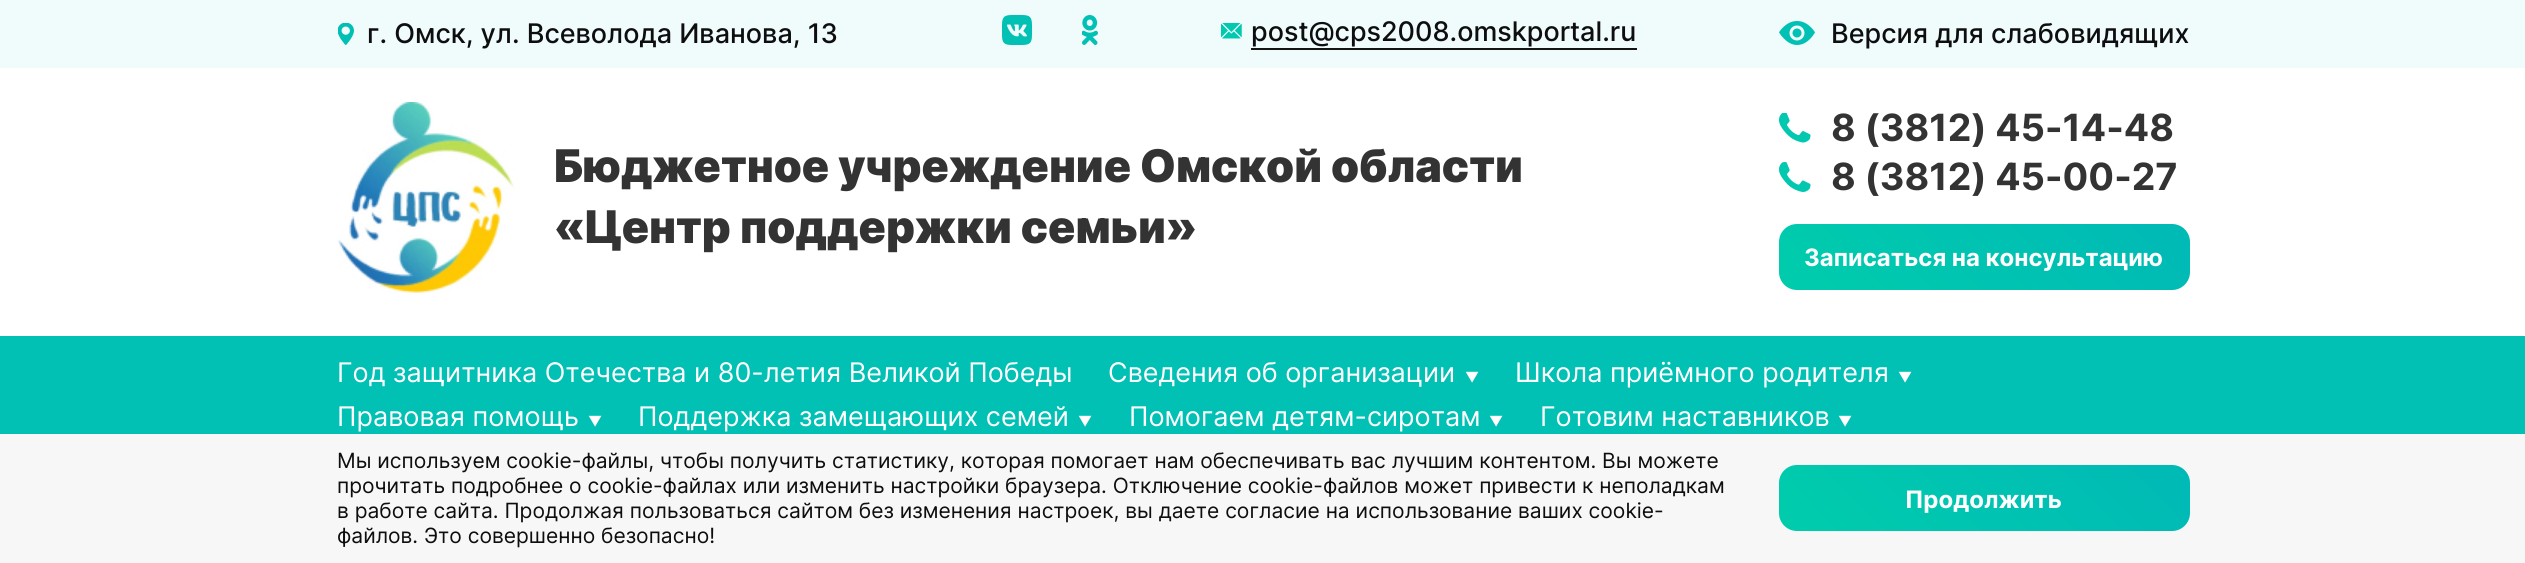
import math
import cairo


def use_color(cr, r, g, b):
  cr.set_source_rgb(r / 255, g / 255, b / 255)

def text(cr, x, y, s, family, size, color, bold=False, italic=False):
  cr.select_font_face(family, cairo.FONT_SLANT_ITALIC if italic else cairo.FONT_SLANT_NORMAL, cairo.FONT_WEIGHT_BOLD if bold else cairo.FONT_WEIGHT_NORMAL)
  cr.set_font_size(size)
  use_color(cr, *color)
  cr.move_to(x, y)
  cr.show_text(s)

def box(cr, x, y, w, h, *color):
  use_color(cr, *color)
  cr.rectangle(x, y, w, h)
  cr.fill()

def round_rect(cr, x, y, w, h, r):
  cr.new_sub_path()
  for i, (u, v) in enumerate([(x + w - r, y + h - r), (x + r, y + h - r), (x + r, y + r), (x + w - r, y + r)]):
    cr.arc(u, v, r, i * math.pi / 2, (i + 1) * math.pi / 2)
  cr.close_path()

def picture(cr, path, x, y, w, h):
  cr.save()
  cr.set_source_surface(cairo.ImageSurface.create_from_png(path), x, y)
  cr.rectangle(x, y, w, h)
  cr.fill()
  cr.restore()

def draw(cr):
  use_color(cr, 255, 255, 255)
  cr.paint()
  box(cr, 0, 0, 2525, 68, 240, 251, 252)
  picture(cr, "img_01.png", 338, 23, 16, 22)
  picture(cr, "img_02.png", 1002, 15, 30, 30)
  picture(cr, "img_03.png", 1082, 15, 16, 30)
  box(cr, 1251, 48, 386, 2, 20, 20, 20)
  picture(cr, "img_04.png", 1221, 23, 21, 16)
  picture(cr, "img_05.png", 1779, 21, 36, 24)
  picture(cr, "img_06.png", 337, 102, 178, 191)
  picture(cr, "img_07.png", 1779, 113, 32, 30)
  picture(cr, "img_08.png", 1779, 162, 32, 30)
  gradient = cairo.LinearGradient(2104, 137, 1865, 376)
  gradient.add_color_stop_rgba(0, 0, 0.725, 0.714, 1)
  gradient.add_color_stop_rgba(1, 0, 0.804, 0.675, 1)
  cr.set_source(gradient)
  round_rect(cr, 1779, 224, 411, 66, 18)
  cr.fill()
  box(cr, 0, 336, 2525, 98, 1, 192, 180)
  box(cr, 0, 434, 2525, 129, 247, 247, 247)
  gradient = cairo.LinearGradient(2104, 379, 1865, 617)
  gradient.add_color_stop_rgba(0, 0, 0.725, 0.714, 1)
  gradient.add_color_stop_rgba(1, 0, 0.804, 0.675, 1)
  cr.set_source(gradient)
  round_rect(cr, 1779, 465, 411, 66, 18)
  cr.fill()
  text(cr, 367, 43, "г. Омск, ул. Всеволода Иванова, 13", "Inter Medium", 27, (14, 14, 15))
  text(cr, 1251, 41, "post@cps2008.omskportal.ru", "Inter Medium", 27, (14, 14, 15))
  text(cr, 1831, 43, "Версия для слабовидящих", "Inter Medium", 27, (14, 14, 15))
  text(cr, 554, 182, "Бюджетное учреждение Омской области", "Inter Black", 45, (51, 51, 51))
  text(cr, 554, 243, "«Центр поддержки семьи»", "Inter Black", 45, (51, 51, 51))
  text(cr, 1831, 141, "8 (3812) 45-14-48", "Inter", 37.5, (51, 51, 51), bold=True)
  text(cr, 1831, 190, "8 (3812) 45-00-27", "Inter", 37.5, (51, 51, 51), bold=True)
  text(cr, 1804, 266, "Записаться на консультацию", "Inter", 24, (255, 255, 255), bold=True)
  text(cr, 337, 382, "Год защитника Отечества и 80-летия Великой Победы", "Inter", 27, (255, 255, 255))
  text(cr, 1108, 382, "Сведения об организации", "Inter", 27, (255, 255, 255))
  text(cr, 1465, 382, "▼", "Inter", 14, (255, 255, 255))
  text(cr, 1515, 382, "Школа приёмного родителя", "Inter", 27, (255, 255, 255))
  text(cr, 1898, 382, "▼", "Inter", 14, (255, 255, 255))
  text(cr, 337, 426, "Правовая помощь", "Inter", 27, (255, 255, 255))
  text(cr, 588, 426, "▼", "Inter", 14, (255, 255, 255))
  text(cr, 638, 426, "Поддержка замещающих семей", "Inter", 27, (255, 255, 255))
  text(cr, 1078, 426, "▼", "Inter", 14, (255, 255, 255))
  text(cr, 1129, 426, "Помогаем детям-сиротам", "Inter", 27, (255, 255, 255))
  text(cr, 1489, 426, "▼", "Inter", 14, (255, 255, 255))
  text(cr, 1540, 426, "Готовим наставников", "Inter", 27, (255, 255, 255))
  text(cr, 1838, 426, "▼", "Inter", 14, (255, 255, 255))
  text(cr, 337, 468, "Мы используем cookie-файлы, чтобы получить статистику, которая помогает нам обеспечивать вас лучшим контентом. Вы можете", "Inter", 21, (14, 14, 15))
  text(cr, 337, 493, "прочитать подробнее о cookie-файлах или изменить настройки браузера. Отключение cookie-файлов может привести к неполадкам", "Inter", 21, (14, 14, 15))
  text(cr, 337, 518, "в работе сайта. Продолжая пользоваться сайтом без изменения настроек, вы даете согласие на использование ваших cookie-", "Inter", 21, (14, 14, 15))
  text(cr, 337, 543, "файлов. Это совершенно безопасно!", "Inter", 21, (14, 14, 15))
  text(cr, 1905, 508, "Продолжить", "Inter", 24, (255, 255, 255), bold=True)


surface = cairo.ImageSurface(cairo.FORMAT_RGB24, 2525, 563)
cr = cairo.Context(surface)
options = cairo.FontOptions()
options.set_hint_metrics(cairo.HINT_METRICS_OFF)
options.set_hint_style(cairo.HINT_STYLE_NONE)
cr.set_font_options(options)
cr.set_miter_limit(4)
draw(cr)
surface.write_to_png("out.png")
